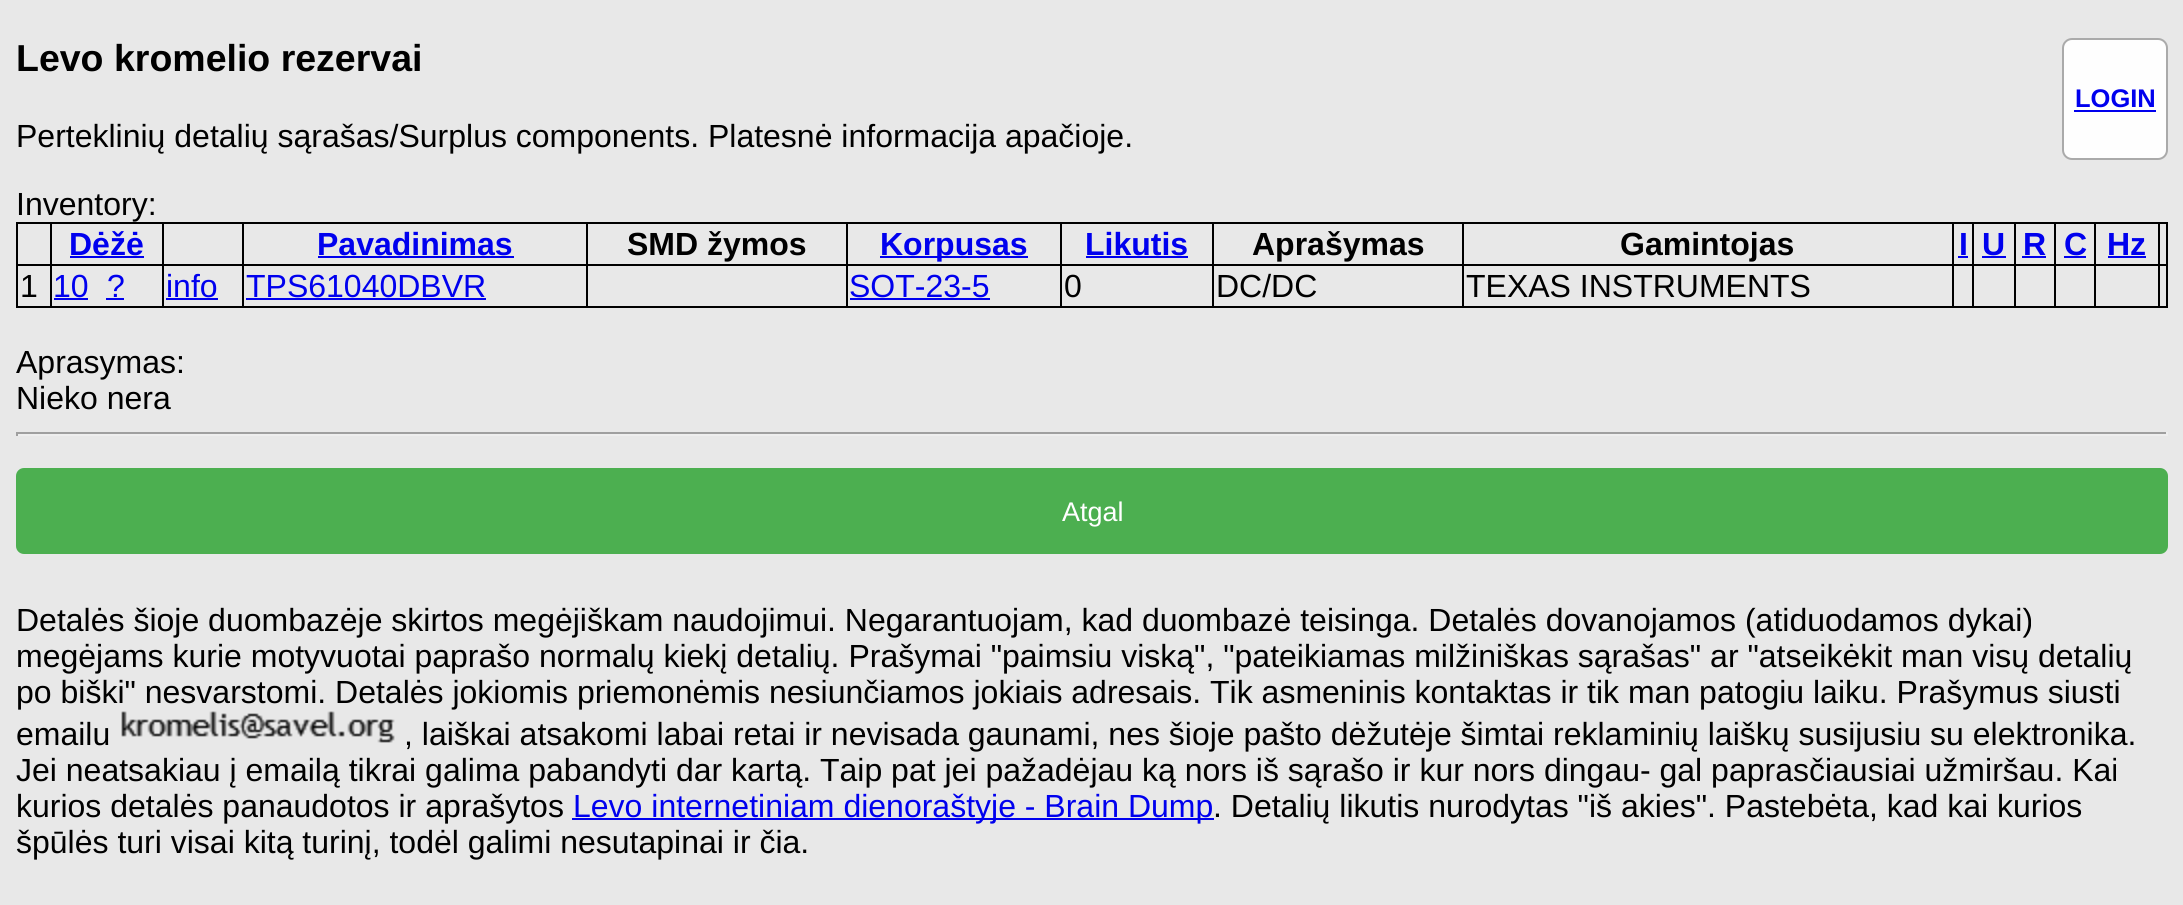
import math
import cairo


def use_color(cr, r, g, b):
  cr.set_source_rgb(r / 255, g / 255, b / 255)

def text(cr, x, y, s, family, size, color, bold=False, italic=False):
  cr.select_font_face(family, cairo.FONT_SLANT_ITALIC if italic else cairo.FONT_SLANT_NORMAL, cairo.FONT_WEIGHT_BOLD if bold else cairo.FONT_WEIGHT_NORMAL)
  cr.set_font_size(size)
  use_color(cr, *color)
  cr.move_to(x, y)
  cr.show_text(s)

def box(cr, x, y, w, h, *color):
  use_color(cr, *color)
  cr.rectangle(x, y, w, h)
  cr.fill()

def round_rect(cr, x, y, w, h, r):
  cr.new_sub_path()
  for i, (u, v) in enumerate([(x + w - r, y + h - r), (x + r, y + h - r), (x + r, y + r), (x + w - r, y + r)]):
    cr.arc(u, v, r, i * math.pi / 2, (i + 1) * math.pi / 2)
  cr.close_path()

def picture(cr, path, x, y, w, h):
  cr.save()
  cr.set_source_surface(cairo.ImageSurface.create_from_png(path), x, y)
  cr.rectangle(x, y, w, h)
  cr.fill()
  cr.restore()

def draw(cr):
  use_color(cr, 232, 232, 232)
  cr.paint()
  use_color(cr, 254, 254, 254)
  round_rect(cr, 2063, 39, 104, 120, 9)
  cr.fill_preserve()
  use_color(cr, 170, 170, 170)
  cr.stroke()
  box(cr, 2074, 110, 82, 2, 0, 0, 238)
  box(cr, 2158, 222, 10, 2, 0, 0, 0)
  box(cr, 2158, 264, 10, 2, 0, 0, 0)
  box(cr, 2166, 264, 2, 44, 0, 0, 0)
  box(cr, 2158, 306, 10, 2, 0, 0, 0)
  box(cr, 2158, 264, 2, 44, 0, 0, 0)
  box(cr, 2094, 264, 66, 2, 0, 0, 0)
  box(cr, 2158, 222, 2, 44, 0, 0, 0)
  box(cr, 2094, 222, 66, 2, 0, 0, 0)
  box(cr, 2094, 306, 66, 2, 0, 0, 0)
  box(cr, 2094, 264, 2, 44, 0, 0, 0)
  box(cr, 2054, 264, 42, 2, 0, 0, 0)
  box(cr, 2094, 222, 2, 44, 0, 0, 0)
  box(cr, 2054, 222, 42, 2, 0, 0, 0)
  box(cr, 2054, 306, 42, 2, 0, 0, 0)
  box(cr, 2054, 264, 2, 44, 0, 0, 0)
  box(cr, 2014, 264, 42, 2, 0, 0, 0)
  box(cr, 2054, 222, 2, 44, 0, 0, 0)
  box(cr, 2014, 222, 42, 2, 0, 0, 0)
  box(cr, 2014, 306, 42, 2, 0, 0, 0)
  box(cr, 2014, 264, 2, 44, 0, 0, 0)
  box(cr, 1972, 264, 44, 2, 0, 0, 0)
  box(cr, 2014, 222, 2, 44, 0, 0, 0)
  box(cr, 1972, 222, 44, 2, 0, 0, 0)
  box(cr, 1972, 306, 44, 2, 0, 0, 0)
  box(cr, 1972, 264, 2, 44, 0, 0, 0)
  box(cr, 1952, 264, 22, 2, 0, 0, 0)
  box(cr, 1972, 222, 2, 44, 0, 0, 0)
  box(cr, 1952, 222, 22, 2, 0, 0, 0)
  box(cr, 1952, 306, 22, 2, 0, 0, 0)
  box(cr, 1952, 264, 2, 44, 0, 0, 0)
  box(cr, 1462, 264, 492, 2, 0, 0, 0)
  box(cr, 1952, 222, 2, 44, 0, 0, 0)
  box(cr, 1462, 222, 492, 2, 0, 0, 0)
  box(cr, 1462, 306, 492, 2, 0, 0, 0)
  box(cr, 1462, 264, 2, 44, 0, 0, 0)
  box(cr, 1212, 264, 252, 2, 0, 0, 0)
  box(cr, 1462, 222, 2, 44, 0, 0, 0)
  box(cr, 1212, 222, 252, 2, 0, 0, 0)
  box(cr, 1212, 306, 252, 2, 0, 0, 0)
  box(cr, 1212, 264, 2, 44, 0, 0, 0)
  box(cr, 1060, 264, 154, 2, 0, 0, 0)
  box(cr, 1212, 222, 2, 44, 0, 0, 0)
  box(cr, 1060, 222, 154, 2, 0, 0, 0)
  box(cr, 1060, 306, 154, 2, 0, 0, 0)
  box(cr, 1060, 264, 2, 44, 0, 0, 0)
  box(cr, 846, 264, 216, 2, 0, 0, 0)
  box(cr, 1060, 222, 2, 44, 0, 0, 0)
  box(cr, 846, 222, 216, 2, 0, 0, 0)
  box(cr, 846, 306, 216, 2, 0, 0, 0)
  box(cr, 846, 264, 2, 44, 0, 0, 0)
  box(cr, 586, 264, 262, 2, 0, 0, 0)
  box(cr, 846, 222, 2, 44, 0, 0, 0)
  box(cr, 586, 222, 262, 2, 0, 0, 0)
  box(cr, 586, 306, 262, 2, 0, 0, 0)
  box(cr, 586, 264, 2, 44, 0, 0, 0)
  box(cr, 242, 264, 346, 2, 0, 0, 0)
  box(cr, 586, 222, 2, 44, 0, 0, 0)
  box(cr, 242, 222, 346, 2, 0, 0, 0)
  box(cr, 242, 306, 346, 2, 0, 0, 0)
  box(cr, 242, 264, 2, 44, 0, 0, 0)
  box(cr, 162, 264, 82, 2, 0, 0, 0)
  box(cr, 242, 222, 2, 44, 0, 0, 0)
  box(cr, 162, 222, 82, 2, 0, 0, 0)
  box(cr, 162, 306, 82, 2, 0, 0, 0)
  box(cr, 162, 264, 2, 44, 0, 0, 0)
  box(cr, 50, 264, 114, 2, 0, 0, 0)
  box(cr, 162, 222, 2, 44, 0, 0, 0)
  box(cr, 50, 222, 114, 2, 0, 0, 0)
  box(cr, 50, 306, 114, 2, 0, 0, 0)
  box(cr, 50, 264, 2, 44, 0, 0, 0)
  box(cr, 16, 264, 36, 2, 0, 0, 0)
  box(cr, 50, 222, 2, 44, 0, 0, 0)
  box(cr, 16, 222, 36, 2, 0, 0, 0)
  box(cr, 16, 306, 36, 2, 0, 0, 0)
  box(cr, 16, 264, 2, 44, 0, 0, 0)
  box(cr, 16, 222, 2, 44, 0, 0, 0)
  box(cr, 70, 256, 74, 2, 0, 0, 238)
  box(cr, 318, 256, 196, 2, 0, 0, 238)
  box(cr, 880, 256, 148, 2, 0, 0, 238)
  box(cr, 1086, 256, 102, 2, 0, 0, 238)
  box(cr, 1958, 256, 10, 2, 0, 0, 238)
  box(cr, 1982, 256, 24, 2, 0, 0, 238)
  box(cr, 2022, 256, 24, 2, 0, 0, 238)
  box(cr, 2064, 256, 22, 2, 0, 0, 238)
  box(cr, 2108, 256, 38, 2, 0, 0, 238)
  box(cr, 2166, 222, 2, 44, 0, 0, 0)
  box(cr, 54, 298, 34, 2, 0, 0, 238)
  box(cr, 106, 298, 18, 2, 0, 0, 238)
  box(cr, 166, 298, 52, 2, 0, 0, 238)
  box(cr, 246, 298, 240, 2, 0, 0, 238)
  box(cr, 850, 298, 140, 2, 0, 0, 238)
  box(cr, 16, 432, 2152, 2, 159, 159, 159)
  box(cr, 2166, 432, 2, 4, 238, 238, 238)
  box(cr, 16, 434, 2152, 2, 238, 238, 238)
  box(cr, 16, 432, 2, 4, 159, 159, 159)
  use_color(cr, 76, 175, 80)
  round_rect(cr, 16, 468, 2152, 86, 8)
  cr.fill()
  picture(cr, "img_01.png", 121, 711, 274, 32)
  box(cr, 572, 818, 642, 2, 0, 0, 238)
  text(cr, 16, 71, "Levo kromelio rezervai", "Liberation Sans", 37.5, (0, 0, 0), bold=True)
  text(cr, 2075, 107, "LOGIN", "Liberation Sans", 25.5, (0, 0, 238), bold=True)
  text(cr, 16, 147, "Perteklinių detalių sąrašas/Surplus components. Platesnė informacija apačioje.", "Liberation Sans", 32, (0, 0, 0))
  text(cr, 16, 215, "Inventory:", "Liberation Sans", 32, (0, 0, 0))
  text(cr, 69, 255, "Dėžė", "Liberation Sans", 32, (0, 0, 238), bold=True)
  text(cr, 317, 255, "Pavadinimas", "Liberation Sans", 32, (0, 0, 238), bold=True)
  text(cr, 627, 255, "SMD žymos", "Liberation Sans", 32, (0, 0, 0), bold=True)
  text(cr, 880, 255, "Korpusas", "Liberation Sans", 32, (0, 0, 238), bold=True)
  text(cr, 1085, 255, "Likutis", "Liberation Sans", 32, (0, 0, 238), bold=True)
  text(cr, 1252, 255, "Aprašymas", "Liberation Sans", 32, (0, 0, 0), bold=True)
  text(cr, 1620, 255, "Gamintojas", "Liberation Sans", 32, (0, 0, 0), bold=True)
  text(cr, 1959, 255, "I", "Liberation Sans", 32, (0, 0, 238), bold=True)
  text(cr, 1982, 255, "U", "Liberation Sans", 32, (0, 0, 238), bold=True)
  text(cr, 2023, 255, "R", "Liberation Sans", 32, (0, 0, 238), bold=True)
  text(cr, 2064, 255, "C", "Liberation Sans", 32, (0, 0, 238), bold=True)
  text(cr, 2107, 255, "Hz", "Liberation Sans", 32, (0, 0, 238), bold=True)
  text(cr, 20, 297, "1", "Liberation Sans", 32, (0, 0, 0))
  text(cr, 53, 297, "10", "Liberation Sans", 32, (0, 0, 238))
  text(cr, 107, 297, "?", "Liberation Sans", 32, (0, 0, 238))
  text(cr, 166, 297, "info", "Liberation Sans", 32, (0, 0, 238))
  text(cr, 246, 297, "TPS61040DBVR", "Liberation Sans", 32, (0, 0, 238))
  text(cr, 849, 297, "SOT-23-5", "Liberation Sans", 32, (0, 0, 238))
  text(cr, 1064, 297, "0", "Liberation Sans", 32, (0, 0, 0))
  text(cr, 1216, 297, "DC/DC", "Liberation Sans", 32, (0, 0, 0))
  text(cr, 1466, 297, "TEXAS INSTRUMENTS", "Liberation Sans", 32, (0, 0, 0))
  text(cr, 16, 373, "Aprasymas:", "Liberation Sans", 32, (0, 0, 0))
  text(cr, 16, 409, "Nieko nera", "Liberation Sans", 32, (0, 0, 0))
  text(cr, 1062, 521, "Atgal", "Liberation Sans", 27, (255, 255, 255))
  text(cr, 16, 631, "Detalės šioje duombazėje skirtos megėjiškam naudojimui. Negarantuojam, kad duombazė teisinga. Detalės dovanojamos (atiduodamos dykai)", "Liberation Sans", 32, (0, 0, 0))
  text(cr, 16, 667, "megėjams kurie motyvuotai paprašo normalų kiekį detalių. Prašymai \"paimsiu viską\", \"pateikiamas milžiniškas sąrašas\" ar \"atseikėkit man visų detalių", "Liberation Sans", 32, (0, 0, 0))
  text(cr, 16, 703, "po biški\" nesvarstomi. Detalės jokiomis priemonėmis nesiunčiamos jokiais adresais. Tik asmeninis kontaktas ir tik man patogiu laiku. Prašymus siusti", "Liberation Sans", 32, (0, 0, 0))
  text(cr, 16, 745, "emailu", "Liberation Sans", 32, (0, 0, 0))
  text(cr, 404, 745, ", laiškai atsakomi labai retai ir nevisada gaunami, nes šioje pašto dėžutėje šimtai reklaminių laiškų susijusiu su elektronika.", "Liberation Sans", 32, (0, 0, 0))
  text(cr, 16, 781, "Jei neatsakiau į emailą tikrai galima pabandyti dar kartą. Taip pat jei pažadėjau ką nors iš sąrašo ir kur nors dingau- gal paprasčiausiai užmiršau. Kai", "Liberation Sans", 32, (0, 0, 0))
  text(cr, 16, 817, "kurios detalės panaudotos ir aprašytos", "Liberation Sans", 32, (0, 0, 0))
  text(cr, 573, 817, "Levo internetiniam dienoraštyje - Brain Dump", "Liberation Sans", 32, (0, 0, 238))
  text(cr, 1213, 817, ". Detalių likutis nurodytas \"iš akies\". Pastebėta, kad kai kurios", "Liberation Sans", 32, (0, 0, 0))
  text(cr, 16, 853, "špūlės turi visai kitą turinį, todėl galimi nesutapinai ir čia.", "Liberation Sans", 32, (0, 0, 0))


surface = cairo.ImageSurface(cairo.FORMAT_RGB24, 2183, 905)
cr = cairo.Context(surface)
options = cairo.FontOptions()
options.set_hint_metrics(cairo.HINT_METRICS_OFF)
options.set_hint_style(cairo.HINT_STYLE_NONE)
cr.set_font_options(options)
cr.set_miter_limit(4)
draw(cr)
surface.write_to_png("out.png")
